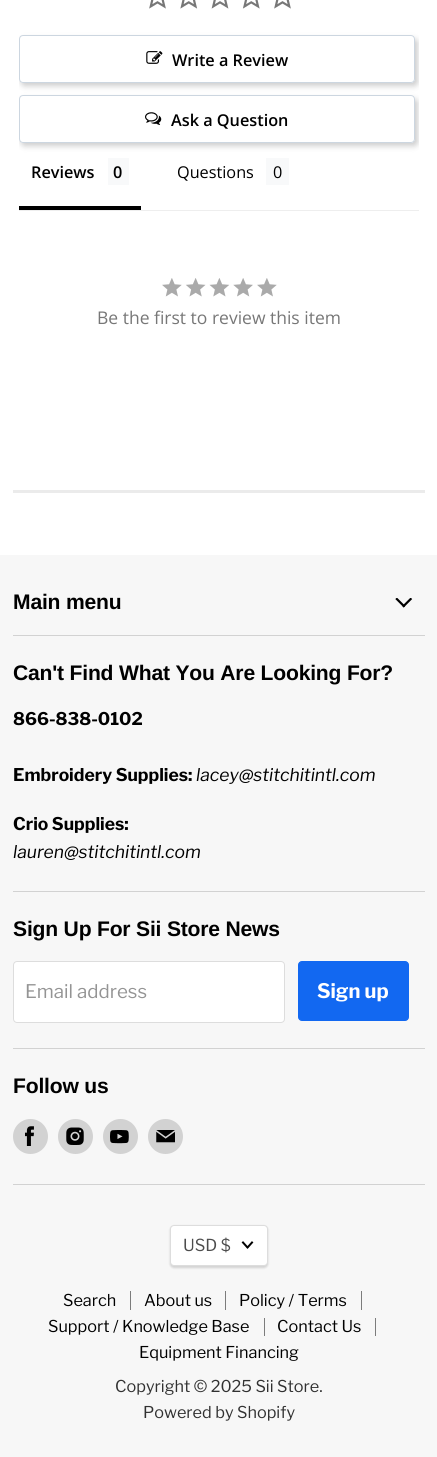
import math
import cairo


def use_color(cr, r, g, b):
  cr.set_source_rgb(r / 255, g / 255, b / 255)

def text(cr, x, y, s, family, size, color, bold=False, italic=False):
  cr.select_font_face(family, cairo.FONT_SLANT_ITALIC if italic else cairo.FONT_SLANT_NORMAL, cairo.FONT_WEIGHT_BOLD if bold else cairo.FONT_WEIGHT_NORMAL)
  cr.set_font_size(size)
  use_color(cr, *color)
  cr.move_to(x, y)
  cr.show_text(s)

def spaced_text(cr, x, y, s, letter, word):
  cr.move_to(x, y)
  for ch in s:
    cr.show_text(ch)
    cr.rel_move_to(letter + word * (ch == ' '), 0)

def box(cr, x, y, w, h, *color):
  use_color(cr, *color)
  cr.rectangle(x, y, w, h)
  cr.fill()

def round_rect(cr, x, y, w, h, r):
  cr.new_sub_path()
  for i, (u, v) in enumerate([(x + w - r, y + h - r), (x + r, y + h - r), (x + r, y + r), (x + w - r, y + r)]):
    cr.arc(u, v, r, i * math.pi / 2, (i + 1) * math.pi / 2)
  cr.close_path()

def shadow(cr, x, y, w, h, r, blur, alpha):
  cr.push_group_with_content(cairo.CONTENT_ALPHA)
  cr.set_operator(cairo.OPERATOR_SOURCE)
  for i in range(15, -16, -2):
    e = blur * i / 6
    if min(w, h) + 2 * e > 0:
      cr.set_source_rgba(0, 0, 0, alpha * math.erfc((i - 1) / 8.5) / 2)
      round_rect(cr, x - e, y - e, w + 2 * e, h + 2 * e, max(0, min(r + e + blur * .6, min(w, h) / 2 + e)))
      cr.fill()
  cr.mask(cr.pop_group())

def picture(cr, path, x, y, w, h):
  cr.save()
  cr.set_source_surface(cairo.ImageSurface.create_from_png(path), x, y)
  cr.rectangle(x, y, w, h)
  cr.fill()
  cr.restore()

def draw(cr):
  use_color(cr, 255, 255, 255)
  cr.paint()
  picture(cr, "img_01.png", 149, 0, 17, 9)
  picture(cr, "img_02.png", 180, 0, 18, 9)
  picture(cr, "img_03.png", 211, 0, 18, 9)
  picture(cr, "img_04.png", 242, 0, 18, 9)
  picture(cr, "img_01.png", 274, 0, 17, 9)
  cr.save()
  cr.rectangle(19, 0, 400, 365)
  cr.clip()
  cr.set_fill_rule(cairo.FILL_RULE_EVEN_ODD)
  cr.new_path()
  cr.move_to(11, 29)
  cr.line_to(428, 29)
  cr.line_to(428, 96)
  cr.line_to(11, 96)
  cr.close_path()
  cr.move_to(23, 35)
  cr.line_to(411, 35)
  cr.curve_to(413, 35, 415, 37, 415, 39)
  cr.line_to(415, 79)
  cr.curve_to(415, 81, 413, 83, 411, 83)
  cr.line_to(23, 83)
  cr.curve_to(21, 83, 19, 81, 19, 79)
  cr.line_to(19, 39)
  cr.curve_to(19, 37, 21, 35, 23, 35)
  cr.close_path()
  cr.clip()
  use_color(cr, 136, 136, 136)
  shadow(cr, 21, 39, 397, 47, 4, 3, 0.42)
  cr.restore()
  round_rect(cr, 19.5, 35.5, 395, 47, 3.5)
  use_color(cr, 204, 214, 224)
  cr.set_line_width(1)
  cr.stroke()
  picture(cr, "img_05.png", 146, 51, 17, 13)
  cr.save()
  cr.rectangle(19, 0, 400, 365)
  cr.clip()
  cr.set_fill_rule(cairo.FILL_RULE_EVEN_ODD)
  cr.new_path()
  cr.move_to(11, 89)
  cr.line_to(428, 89)
  cr.line_to(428, 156)
  cr.line_to(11, 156)
  cr.close_path()
  cr.move_to(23, 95)
  cr.line_to(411, 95)
  cr.curve_to(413, 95, 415, 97, 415, 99)
  cr.line_to(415, 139)
  cr.curve_to(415, 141, 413, 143, 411, 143)
  cr.line_to(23, 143)
  cr.curve_to(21, 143, 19, 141, 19, 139)
  cr.line_to(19, 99)
  cr.curve_to(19, 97, 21, 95, 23, 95)
  cr.close_path()
  cr.clip()
  use_color(cr, 136, 136, 136)
  shadow(cr, 21, 99, 397, 47, 4, 3, 0.42)
  cr.restore()
  round_rect(cr, 19.5, 95.5, 395, 47, 3.5)
  cr.stroke()
  picture(cr, "img_06.png", 145, 112, 17, 13)
  box(cr, 19, 210, 400, 1, 238, 238, 238)
  box(cr, 19, 206, 122, 4, 0, 0, 0)
  box(cr, 108, 158, 21, 27, 248, 249, 250)
  box(cr, 266, 158, 23, 27, 248, 249, 250)
  picture(cr, "img_07.png", 162, 278, 115, 19)
  cr.set_source_rgba(0.502, 0.502, 0.502, 0.16)
  cr.rectangle(13, 490, 412, 3)
  cr.fill()
  box(cr, 0, 555, 437, 902, 247, 247, 247)
  box(cr, 13, 635, 412, 1, 210, 210, 210)
  picture(cr, "img_08.png", 395, 598, 18, 10)
  box(cr, 13, 891, 412, 1, 210, 210, 210)
  box(cr, 13, 1048, 412, 1, 210, 210, 210)
  use_color(cr, 255, 255, 255)
  round_rect(cr, 13.5, 961.5, 271, 61, 3.5)
  cr.fill_preserve()
  use_color(cr, 221, 221, 221)
  cr.stroke()
  use_color(cr, 18, 104, 241)
  round_rect(cr, 298.5, 961.5, 110, 59, 3.5)
  cr.fill_preserve()
  cr.stroke()
  box(cr, 13, 1184, 412, 1, 210, 210, 210)
  cr.arc(30.5, 1136.5, 17.5, 0, 2 * math.pi)
  cr.fill()
  picture(cr, "img_09.png", 25, 1126, 9, 20)
  cr.arc(75.5, 1136.5, 17.5, 0, 2 * math.pi)
  cr.fill()
  picture(cr, "img_10.png", 66, 1127, 18, 18)
  cr.arc(120.5, 1136.5, 17.5, 0, 2 * math.pi)
  cr.fill()
  picture(cr, "img_11.png", 110, 1130, 19, 14)
  cr.arc(165.5, 1136.5, 17.5, 0, 2 * math.pi)
  cr.fill()
  picture(cr, "img_12.png", 156, 1130, 19, 13)
  use_color(cr, 0, 0, 0)
  shadow(cr, 170, 1226, 98, 42, 4, 1, 0.15)
  use_color(cr, 255, 255, 255)
  round_rect(cr, 170.5, 1225.5, 97, 40, 3.5)
  cr.fill_preserve()
  use_color(cr, 221, 221, 221)
  cr.stroke()
  cr.new_path()
  cr.move_to(247.5, 1247.5)
  cr.line_to(252, 1242.5)
  cr.move_to(247.5, 1247.5)
  cr.line_to(243, 1242.5)
  use_color(cr, 0, 0, 0)
  cr.set_line_width(2)
  cr.set_line_cap(cairo.LINE_CAP_SQUARE)
  cr.stroke()
  box(cr, 130, 1291, 1, 19, 124, 124, 124)
  box(cr, 225, 1291, 1, 19, 124, 124, 124)
  box(cr, 361, 1291, 1, 19, 124, 124, 124)
  box(cr, 264, 1318, 1, 18, 124, 124, 124)
  box(cr, 375, 1318, 1, 18, 124, 124, 124)
  text(cr, 172, 66, "Write a Review", "Open Sans SemiBold", 16.25, (0, 0, 0))
  text(cr, 171, 126, "Ask a Question", "Open Sans SemiBold", 16.25, (0, 0, 0))
  text(cr, 31, 178, "Reviews", "Open Sans SemiBold", 16.25, (0, 0, 0))
  text(cr, 113, 178, "0", "Open Sans SemiBold", 16.25, (0, 0, 0))
  text(cr, 177, 178, "Questions", "Open Sans", 16.25, (0, 0, 0))
  text(cr, 273, 178, "0", "Open Sans", 16.25, (0, 0, 0))
  text(cr, 97, 324, "Be the first to review this item", "Open Sans", 17.5, (119, 119, 119))
  cr.select_font_face("Arimo", cairo.FONT_SLANT_NORMAL, cairo.FONT_WEIGHT_BOLD)
  cr.set_font_size(21.1)
  use_color(cr, 0, 0, 0)
  spaced_text(cr, 13, 609, "Main menu", -0.2, 0)
  spaced_text(cr, 13, 680, "Can't Find What You Are Looking For?", -0.2, 0)
  text(cr, 13, 725, "866-838-0102", "Libre Franklin", 17.5, (0, 0, 0), bold=True)
  text(cr, 13, 781, "Embroidery Supplies:", "Libre Franklin", 17.5, (0, 0, 0), bold=True)
  text(cr, 196, 781, "lacey@stitchitintl.com", "Libre Franklin", 17.5, (0, 0, 0), italic=True)
  text(cr, 13, 830, "Crio Supplies:", "Libre Franklin", 17.5, (0, 0, 0), bold=True)
  text(cr, 13, 858, "lauren@stitchitintl.com", "Libre Franklin", 17.5, (0, 0, 0), italic=True)
  cr.select_font_face("Arimo", cairo.FONT_SLANT_NORMAL, cairo.FONT_WEIGHT_BOLD)
  cr.set_font_size(21.1)
  spaced_text(cr, 13, 936, "Sign Up For Sii Store News", -0.2, 0)
  text(cr, 25, 998, "Email address", "Libre Franklin", 18.75, (148, 148, 148))
  text(cr, 317, 998, "Sign up", "Libre Franklin", 20, (255, 255, 255), bold=True)
  cr.select_font_face("Arimo", cairo.FONT_SLANT_NORMAL, cairo.FONT_WEIGHT_BOLD)
  cr.set_font_size(21.1)
  use_color(cr, 0, 0, 0)
  spaced_text(cr, 13, 1093, "Follow us", -0.2, 0)
  text(cr, 183, 1251, "USD $", "Libre Franklin", 16.5, (77, 77, 77))
  text(cr, 63, 1306, "Search", "Libre Franklin", 16.25, (0, 0, 0))
  text(cr, 144, 1306, "About us", "Libre Franklin", 16.25, (0, 0, 0))
  text(cr, 239, 1306, "Policy / Terms", "Libre Franklin", 16.25, (0, 0, 0))
  text(cr, 48, 1332, "Support / Knowledge Base", "Libre Franklin", 16.25, (0, 0, 0))
  text(cr, 277, 1332, "Contact Us", "Libre Franklin", 16.25, (0, 0, 0))
  text(cr, 139, 1358, "Equipment Financing", "Libre Franklin", 16.25, (0, 0, 0))
  text(cr, 115, 1392, "Copyright © 2025 Sii Store.", "Libre Franklin", 16.25, (49, 49, 49))
  text(cr, 143, 1418, "Powered by Shopify", "Libre Franklin", 16.25, (49, 49, 49))


surface = cairo.ImageSurface(cairo.FORMAT_RGB24, 437, 1457)
cr = cairo.Context(surface)
options = cairo.FontOptions()
options.set_hint_metrics(cairo.HINT_METRICS_OFF)
options.set_hint_style(cairo.HINT_STYLE_NONE)
cr.set_font_options(options)
cr.set_miter_limit(4)
draw(cr)
surface.write_to_png("out.png")
